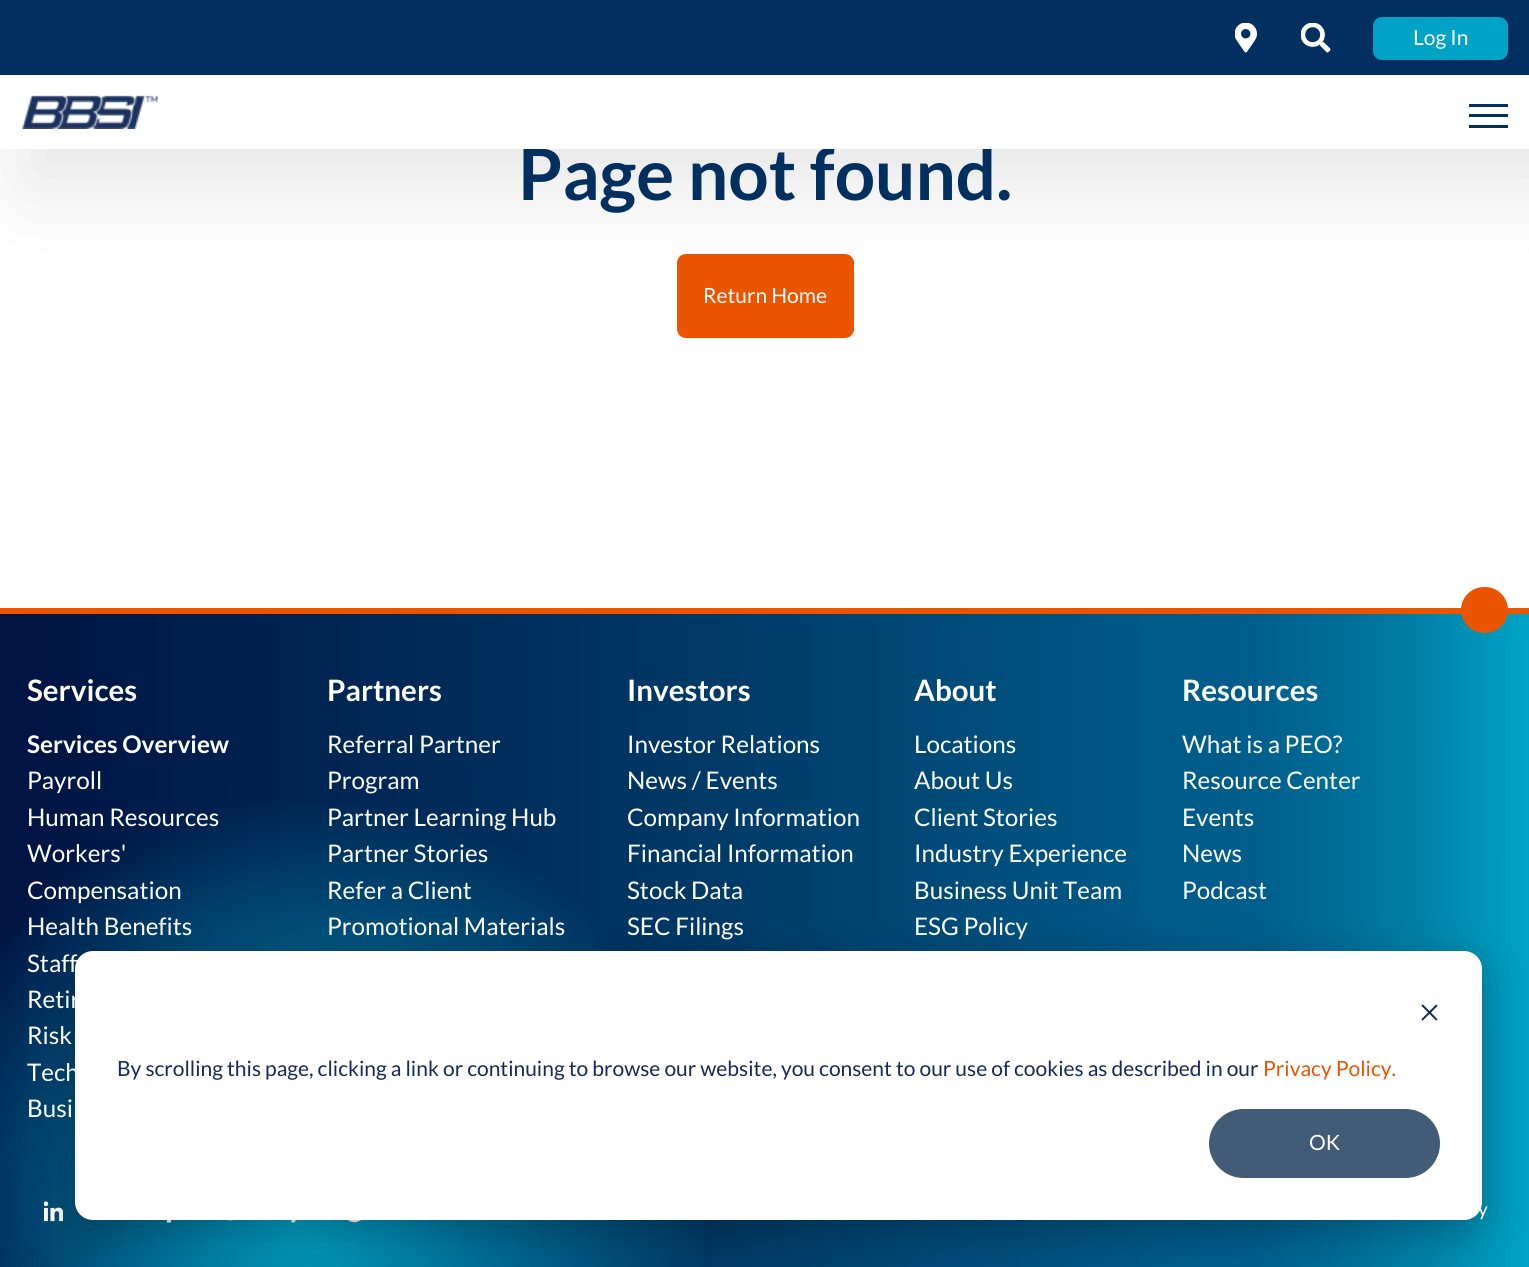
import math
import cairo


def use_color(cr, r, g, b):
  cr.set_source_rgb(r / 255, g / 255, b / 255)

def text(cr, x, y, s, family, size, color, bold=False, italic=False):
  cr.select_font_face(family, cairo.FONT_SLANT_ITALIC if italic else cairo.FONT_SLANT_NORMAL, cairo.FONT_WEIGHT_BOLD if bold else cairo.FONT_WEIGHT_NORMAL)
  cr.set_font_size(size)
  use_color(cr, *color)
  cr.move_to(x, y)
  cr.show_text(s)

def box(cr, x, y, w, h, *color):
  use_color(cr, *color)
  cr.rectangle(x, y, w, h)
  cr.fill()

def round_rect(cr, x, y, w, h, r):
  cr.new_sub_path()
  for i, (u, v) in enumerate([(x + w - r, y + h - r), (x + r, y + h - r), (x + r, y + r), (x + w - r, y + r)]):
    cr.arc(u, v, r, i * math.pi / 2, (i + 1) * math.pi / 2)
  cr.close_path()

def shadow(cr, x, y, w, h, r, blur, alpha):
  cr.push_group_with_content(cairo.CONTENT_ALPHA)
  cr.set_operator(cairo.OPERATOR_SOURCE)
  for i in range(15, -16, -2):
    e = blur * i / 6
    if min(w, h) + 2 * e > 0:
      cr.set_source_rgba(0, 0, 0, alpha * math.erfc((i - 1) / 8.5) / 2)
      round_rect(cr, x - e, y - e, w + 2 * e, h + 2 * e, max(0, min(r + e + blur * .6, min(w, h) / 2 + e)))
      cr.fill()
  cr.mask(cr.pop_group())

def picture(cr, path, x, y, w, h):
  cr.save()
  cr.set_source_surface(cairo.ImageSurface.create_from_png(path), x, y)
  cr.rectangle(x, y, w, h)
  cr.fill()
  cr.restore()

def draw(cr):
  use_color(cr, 255, 255, 255)
  cr.paint()
  use_color(cr, 235, 84, 0)
  round_rect(cr, 678.5, 255.5, 174, 81, 7.5)
  cr.fill_preserve()
  cr.set_line_width(3)
  cr.stroke()
  use_color(cr, 0, 0, 0)
  shadow(cr, 23, 38, 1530, 148, 0, 45, 0.1)
  box(cr, 0, 0, 1529, 75, 0, 47, 96)
  picture(cr, "img_01.png", 1235, 23, 22, 30)
  picture(cr, "img_02.png", 1301, 23, 30, 30)
  use_color(cr, 0, 162, 197)
  round_rect(cr, 1374.5, 18.5, 132, 40, 7.5)
  cr.fill_preserve()
  cr.stroke()
  gradient = cairo.LinearGradient(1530, 940, 0, 941)
  gradient.add_color_stop_rgba(0, 0, 0.635, 0.773, 1)
  gradient.add_color_stop_rgba(0.01, 0, 0.624, 0.761, 1)
  gradient.add_color_stop_rgba(0.07, 0, 0.506, 0.663, 1)
  gradient.add_color_stop_rgba(0.13, 0, 0.42, 0.592, 1)
  gradient.add_color_stop_rgba(0.18, 0, 0.369, 0.549, 1)
  gradient.add_color_stop_rgba(0.24, 0, 0.353, 0.533, 1)
  gradient.add_color_stop_rgba(0.53, 0, 0.227, 0.404, 1)
  gradient.add_color_stop_rgba(1, 0, 0.075, 0.259, 1)
  cr.set_source(gradient)
  cr.rectangle(0, 614, 1529, 653)
  cr.fill()
  gradient = cairo.RadialGradient(306, 1202, 0, 306, 1202, 1358)
  gradient.add_color_stop_rgba(0, 0, 0.635, 0.773, 1)
  gradient.add_color_stop_rgba(0.3, 0, 0.635, 0.773, 0)
  cr.set_source(gradient)
  cr.rectangle(0, 803, 704, 464)
  cr.fill()
  box(cr, 0, 608, 1529, 6, 235, 84, 0)
  round_rect(cr, 1461, 587, 47, 46, 23)
  cr.fill()
  picture(cr, "img_04.png", 44, 1201, 19, 21)
  picture(cr, "img_05.png", 166, 1220, 5, 3)
  picture(cr, "img_06.png", 228, 1220, 6, 1)
  picture(cr, "img_07.png", 291, 1220, 5, 3)
  picture(cr, "img_08.png", 348, 1220, 13, 3)
  use_color(cr, 0, 0, 0)
  shadow(cr, 75, 963, 1407, 269, 18, 21, 0.28)
  use_color(cr, 255, 255, 255)
  round_rect(cr, 75, 951, 1407, 269, 18)
  cr.fill()
  picture(cr, "img_09.png", 1421, 1004, 17, 17)
  use_color(cr, 66, 91, 118)
  round_rect(cr, 1210, 1110, 229, 67, 33.5)
  cr.fill_preserve()
  cr.set_line_width(2)
  cr.stroke()
  text(cr, 1413, 45, "Log In", "Lato", 21, (255, 255, 255))
  text(cr, 518, 200, "Page not found.", "Lato", 71, (0, 47, 96), bold=True)
  box(cr, 0, 75, 1529, 74, 255, 255, 255)
  box(cr, 1469, 104, 39, 3, 0, 47, 96)
  box(cr, 1469, 114, 39, 3, 0, 47, 96)
  box(cr, 1469, 125, 39, 3, 0, 47, 96)
  picture(cr, "img_03.png", 22, 95, 136, 34)
  text(cr, 703, 303, "Return Home", "Lato", 21, (255, 255, 255))
  text(cr, 27, 701, "Services", "Lato", 29.5, (255, 255, 255), bold=True)
  text(cr, 27, 753, "Services Overview", "Lato", 24.25, (255, 255, 255), bold=True)
  text(cr, 27, 789, "Payroll", "Lato", 24.25, (255, 255, 255))
  text(cr, 27, 826, "Human Resources", "Lato", 24.25, (255, 255, 255))
  text(cr, 27, 862, "Workers'", "Lato", 24.25, (255, 255, 255))
  text(cr, 27, 899, "Compensation", "Lato", 24.25, (255, 255, 255))
  text(cr, 27, 935, "Health Benefits", "Lato", 24.25, (255, 255, 255))
  text(cr, 27, 972, "Staff", "Lato", 24.25, (255, 255, 255))
  text(cr, 27, 1008, "Retir", "Lato", 24.25, (255, 255, 255))
  text(cr, 27, 1044, "Risk", "Lato", 24.25, (255, 255, 255))
  text(cr, 27, 1081, "Tech", "Lato", 24.25, (255, 255, 255))
  text(cr, 27, 1117, "Busi", "Lato", 24.25, (255, 255, 255))
  text(cr, 327, 701, "Partners", "Lato", 29.5, (255, 255, 255), bold=True)
  text(cr, 327, 753, "Referral Partner", "Lato", 24.25, (255, 255, 255))
  text(cr, 327, 789, "Program", "Lato", 24.25, (255, 255, 255))
  text(cr, 327, 826, "Partner Learning Hub", "Lato", 24.25, (255, 255, 255))
  text(cr, 327, 862, "Partner Stories", "Lato", 24.25, (255, 255, 255))
  text(cr, 327, 899, "Refer a Client", "Lato", 24.25, (255, 255, 255))
  text(cr, 327, 935, "Promotional Materials", "Lato", 24.25, (255, 255, 255))
  text(cr, 627, 701, "Investors", "Lato", 29.5, (255, 255, 255), bold=True)
  text(cr, 627, 753, "Investor Relations", "Lato", 24.25, (255, 255, 255))
  text(cr, 627, 789, "News / Events", "Lato", 24.25, (255, 255, 255))
  text(cr, 627, 826, "Company Information", "Lato", 24.25, (255, 255, 255))
  text(cr, 627, 862, "Financial Information", "Lato", 24.25, (255, 255, 255))
  text(cr, 627, 899, "Stock Data", "Lato", 24.25, (255, 255, 255))
  text(cr, 627, 935, "SEC Filings", "Lato", 24.25, (255, 255, 255))
  text(cr, 914, 701, "About", "Lato", 29.5, (255, 255, 255), bold=True)
  text(cr, 914, 753, "Locations", "Lato", 24.25, (255, 255, 255))
  text(cr, 914, 789, "About Us", "Lato", 24.25, (255, 255, 255))
  text(cr, 914, 826, "Client Stories", "Lato", 24.25, (255, 255, 255))
  text(cr, 914, 862, "Industry Experience", "Lato", 24.25, (255, 255, 255))
  text(cr, 914, 899, "Business Unit Team", "Lato", 24.25, (255, 255, 255))
  text(cr, 914, 935, "ESG Policy", "Lato", 24.25, (255, 255, 255))
  text(cr, 1182, 701, "Resources", "Lato", 29.5, (255, 255, 255), bold=True)
  text(cr, 1182, 753, "What is a PEO?", "Lato", 24.25, (255, 255, 255))
  text(cr, 1182, 789, "Resource Center", "Lato", 24.25, (255, 255, 255))
  text(cr, 1182, 826, "Events", "Lato", 24.25, (255, 255, 255))
  text(cr, 1182, 862, "News", "Lato", 24.25, (255, 255, 255))
  text(cr, 1182, 899, "Podcast", "Lato", 24.25, (255, 255, 255))
  text(cr, 1478, 1216, "y", "Lato", 19, (255, 255, 255))
  text(cr, 117, 1076, "By scrolling this page, clicking a link or continuing to browse our website, you consent to our use of cookies as described in our", "Lato", 21, (21, 41, 90))
  text(cr, 1263, 1076, "Privacy Policy.", "Lato", 21, (235, 84, 0))
  text(cr, 1309, 1150, "OK", "Lato", 21, (255, 255, 255))


surface = cairo.ImageSurface(cairo.FORMAT_RGB24, 1529, 1267)
cr = cairo.Context(surface)
options = cairo.FontOptions()
options.set_hint_metrics(cairo.HINT_METRICS_OFF)
options.set_hint_style(cairo.HINT_STYLE_NONE)
cr.set_font_options(options)
cr.set_miter_limit(4)
draw(cr)
surface.write_to_png("out.png")
